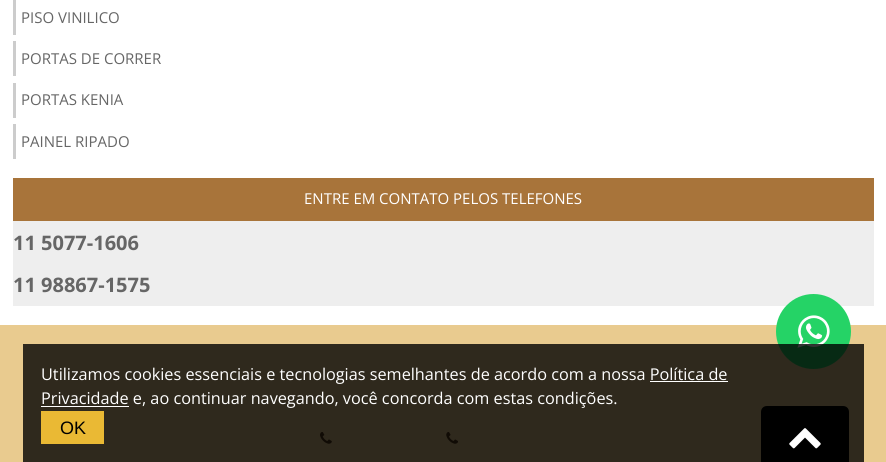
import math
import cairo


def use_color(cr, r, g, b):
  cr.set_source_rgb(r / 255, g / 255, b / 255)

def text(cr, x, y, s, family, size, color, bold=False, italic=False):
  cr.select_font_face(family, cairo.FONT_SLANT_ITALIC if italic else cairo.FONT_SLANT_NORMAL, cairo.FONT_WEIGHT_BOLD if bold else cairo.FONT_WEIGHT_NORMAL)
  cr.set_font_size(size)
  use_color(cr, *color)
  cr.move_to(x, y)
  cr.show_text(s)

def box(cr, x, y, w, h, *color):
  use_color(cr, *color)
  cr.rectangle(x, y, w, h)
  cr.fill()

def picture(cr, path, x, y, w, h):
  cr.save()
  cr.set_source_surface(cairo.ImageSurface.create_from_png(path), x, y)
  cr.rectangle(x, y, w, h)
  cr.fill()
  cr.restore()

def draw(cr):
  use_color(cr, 255, 255, 255)
  cr.paint()
  box(cr, 13, 0, 3, 35, 204, 204, 204)
  box(cr, 13, 41, 3, 35, 204, 204, 204)
  box(cr, 13, 83, 3, 35, 204, 204, 204)
  box(cr, 13, 124, 3, 35, 204, 204, 204)
  box(cr, 13, 178, 861, 43, 168, 116, 58)
  box(cr, 13, 221, 861, 85, 238, 238, 238)
  box(cr, 0, 325, 886, 137, 233, 203, 143)
  use_color(cr, 37, 211, 102)
  cr.arc(813.5, 331.5, 37.5, 0, 2 * math.pi)
  cr.fill()
  picture(cr, "img_01.png", 797, 315, 33, 33)
  picture(cr, "img_03.png", 320, 432, 12, 12)
  picture(cr, "img_04.png", 446, 432, 12, 12)
  cr.set_source_rgba(0, 0, 0, 0.8)
  cr.rectangle(23, 344, 841, 118)
  cr.fill()
  box(cr, 650, 381, 78, 1, 255, 255, 255)
  box(cr, 41, 406, 88, 1, 255, 255, 255)
  box(cr, 41, 411, 63, 33, 234, 185, 52)
  use_color(cr, 0, 0, 0)
  cr.new_path()
  cr.move_to(767, 406)
  cr.line_to(843, 406)
  cr.curve_to(846.5, 406, 849, 408.5, 849, 412)
  cr.line_to(849, 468)
  cr.line_to(761, 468)
  cr.line_to(761, 412)
  cr.curve_to(761, 408.5, 763.5, 406, 767, 406)
  cr.close_path()
  cr.fill()
  picture(cr, "img_02.png", 789, 428, 32, 21)
  text(cr, 21, 23, "PISO VINILICO", "Open Sans", 15, (102, 102, 102))
  text(cr, 21, 64, "PORTAS DE CORRER", "Open Sans", 15, (102, 102, 102))
  text(cr, 21, 105, "PORTAS KENIA", "Open Sans", 15, (102, 102, 102))
  text(cr, 21, 147, "PAINEL RIPADO", "Open Sans", 15, (102, 102, 102))
  text(cr, 304, 204, "ENTRE EM CONTATO PELOS TELEFONES", "Open Sans", 15, (255, 255, 255))
  text(cr, 13, 250, "11 5077-1606", "Open Sans", 20, (102, 102, 102), bold=True)
  text(cr, 13, 292, "11 98867-1575", "Open Sans", 20, (102, 102, 102), bold=True)
  text(cr, 41, 380, "Utilizamos cookies essenciais e tecnologias semelhantes de acordo com a nossa Política de", "Open Sans", 16.25, (255, 255, 255))
  text(cr, 41, 404, "Privacidade e, ao continuar navegando, você concorda com estas condições.", "Open Sans", 16.25, (255, 255, 255))
  text(cr, 60, 434, "OK", "Liberation Sans", 18, (0, 0, 0))


surface = cairo.ImageSurface(cairo.FORMAT_RGB24, 886, 462)
cr = cairo.Context(surface)
options = cairo.FontOptions()
options.set_hint_metrics(cairo.HINT_METRICS_OFF)
options.set_hint_style(cairo.HINT_STYLE_NONE)
cr.set_font_options(options)
cr.set_miter_limit(4)
draw(cr)
surface.write_to_png("out.png")
